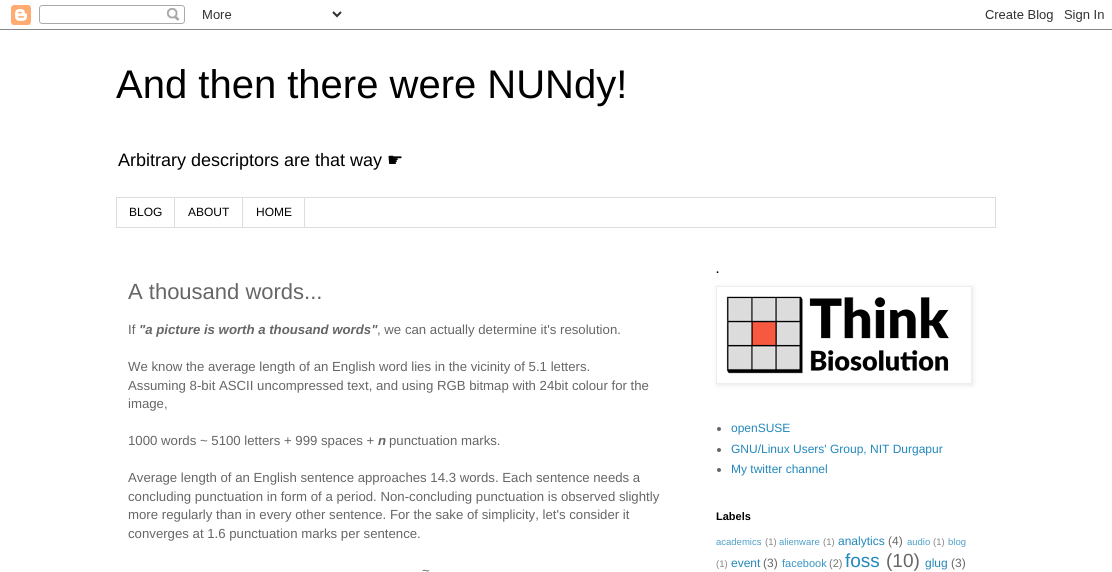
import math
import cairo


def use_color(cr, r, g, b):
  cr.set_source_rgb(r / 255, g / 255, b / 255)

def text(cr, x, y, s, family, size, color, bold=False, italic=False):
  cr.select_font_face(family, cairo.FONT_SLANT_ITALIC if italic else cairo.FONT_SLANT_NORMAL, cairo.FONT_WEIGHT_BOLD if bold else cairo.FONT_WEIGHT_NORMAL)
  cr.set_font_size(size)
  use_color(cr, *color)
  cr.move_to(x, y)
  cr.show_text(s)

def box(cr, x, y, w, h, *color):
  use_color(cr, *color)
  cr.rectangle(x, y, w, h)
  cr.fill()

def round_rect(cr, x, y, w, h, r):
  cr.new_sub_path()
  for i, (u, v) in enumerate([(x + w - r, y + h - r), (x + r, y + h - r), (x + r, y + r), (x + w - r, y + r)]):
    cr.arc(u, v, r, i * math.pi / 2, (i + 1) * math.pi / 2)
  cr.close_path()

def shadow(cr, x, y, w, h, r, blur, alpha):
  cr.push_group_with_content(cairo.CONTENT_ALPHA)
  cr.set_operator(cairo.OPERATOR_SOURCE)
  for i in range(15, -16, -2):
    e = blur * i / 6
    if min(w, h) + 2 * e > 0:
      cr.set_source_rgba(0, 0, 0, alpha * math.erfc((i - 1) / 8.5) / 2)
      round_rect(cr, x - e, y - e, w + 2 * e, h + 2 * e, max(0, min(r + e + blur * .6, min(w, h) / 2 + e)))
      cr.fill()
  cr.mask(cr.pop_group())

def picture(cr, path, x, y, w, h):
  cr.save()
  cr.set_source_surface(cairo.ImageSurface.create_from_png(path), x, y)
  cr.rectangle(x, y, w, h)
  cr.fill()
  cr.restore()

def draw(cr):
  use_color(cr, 255, 255, 255)
  cr.paint()
  picture(cr, "img_01.png", 0, 5, 1112, 25)
  cr.rectangle(116.5, 197.5, 879, 30)
  use_color(cr, 221, 221, 221)
  cr.set_line_width(1)
  cr.stroke()
  box(cr, 174, 198, 1, 29, 221, 221, 221)
  box(cr, 242, 198, 1, 29, 221, 221, 221)
  box(cr, 304, 198, 1, 29, 221, 221, 221)
  cr.save()
  cr.set_fill_rule(cairo.FILL_RULE_EVEN_ODD)
  cr.new_path()
  cr.move_to(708, 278)
  cr.line_to(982, 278)
  cr.line_to(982, 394)
  cr.line_to(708, 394)
  cr.close_path()
  cr.move_to(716, 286)
  cr.line_to(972, 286)
  cr.line_to(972, 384)
  cr.line_to(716, 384)
  cr.close_path()
  cr.clip()
  use_color(cr, 0, 0, 0)
  shadow(cr, 717, 287, 256, 98, 0, 2.5, 0.1)
  cr.restore()
  cr.rectangle(716.5, 286.5, 255, 97)
  use_color(cr, 238, 238, 238)
  cr.stroke()
  picture(cr, "img_02.png", 726, 296, 223, 78)
  use_color(cr, 102, 102, 102)
  cr.arc(719, 429, 2, 0, 2 * math.pi)
  cr.fill()
  cr.arc(719, 450, 2, 0, 2 * math.pi)
  cr.fill()
  cr.arc(719, 470, 2, 0, 2 * math.pi)
  cr.fill()
  text(cr, 116, 98, "And then there were NUNdy!", "Liberation Sans", 40, (0, 0, 0))
  text(cr, 118, 166, "Arbitrary descriptors are that way", "Liberation Sans", 18, (0, 0, 0))
  text(cr, 387, 166, "☛", "DejaVu Sans", 18, (0, 0, 0))
  text(cr, 129, 216, "BLOG", "Liberation Sans", 12, (0, 0, 0))
  text(cr, 188, 216, "ABOUT", "Liberation Sans", 12, (0, 0, 0))
  text(cr, 256, 216, "HOME", "Liberation Sans", 12, (0, 0, 0))
  text(cr, 128, 299, "A thousand words...", "Liberation Sans", 22, (102, 102, 102))
  text(cr, 128, 334, "If", "Liberation Sans", 13.2, (102, 102, 102))
  text(cr, 139, 334, "\"a picture is worth a thousand words\"", "Liberation Sans", 13.2, (102, 102, 102), bold=True, italic=True)
  text(cr, 377, 334, ", we can actually determine it's resolution.", "Liberation Sans", 13.2, (102, 102, 102))
  text(cr, 128, 371, "We know the average length of an English word lies in the vicinity of 5.1 letters.", "Liberation Sans", 13.2, (102, 102, 102))
  text(cr, 128, 390, "Assuming 8-bit ASCII uncompressed text, and using RGB bitmap with 24bit colour for the", "Liberation Sans", 13.2, (102, 102, 102))
  text(cr, 128, 408, "image,", "Liberation Sans", 13.2, (102, 102, 102))
  text(cr, 128, 445, "1000 words ~ 5100 letters + 999 spaces +", "Liberation Sans", 13.2, (102, 102, 102))
  text(cr, 378, 445, "n", "Liberation Sans", 13.2, (102, 102, 102), bold=True, italic=True)
  text(cr, 389, 445, "punctuation marks.", "Liberation Sans", 13.2, (102, 102, 102))
  text(cr, 128, 482, "Average length of an English sentence approaches 14.3 words. Each sentence needs a", "Liberation Sans", 13.2, (102, 102, 102))
  text(cr, 128, 501, "concluding punctuation in form of a period. Non-concluding punctuation is observed slightly", "Liberation Sans", 13.2, (102, 102, 102))
  text(cr, 128, 519, "more regularly than in every other sentence. For the sake of simplicity, let's consider it", "Liberation Sans", 13.2, (102, 102, 102))
  text(cr, 128, 538, "converges at 1.6 punctuation marks per sentence.", "Liberation Sans", 13.2, (102, 102, 102))
  text(cr, 422, 575, "~", "Liberation Sans", 13.2, (102, 102, 102))
  text(cr, 716, 273, ".", "Liberation Sans", 11, (0, 0, 0), bold=True)
  text(cr, 731, 432, "openSUSE", "Liberation Sans", 12, (34, 136, 187))
  text(cr, 731, 453, "GNU/Linux Users' Group, NIT Durgapur", "Liberation Sans", 12, (34, 136, 187))
  text(cr, 731, 473, "My twitter channel", "Liberation Sans", 12, (34, 136, 187))
  text(cr, 716, 520, "Labels", "Liberation Sans", 11, (0, 0, 0), bold=True)
  text(cr, 716, 545, "academics", "Liberation Sans", 9.5, (78, 160, 201))
  text(cr, 765, 545, "(1)", "Liberation Sans", 9.5, (133, 133, 133))
  text(cr, 779, 545, "alienware", "Liberation Sans", 9.5, (78, 160, 201))
  text(cr, 823, 545, "(1)", "Liberation Sans", 9.5, (133, 133, 133))
  text(cr, 838, 545, "analytics", "Liberation Sans", 12, (34, 136, 187))
  text(cr, 888, 545, "(4)", "Liberation Sans", 12, (102, 102, 102))
  text(cr, 907, 545, "audio", "Liberation Sans", 9.5, (78, 160, 201))
  text(cr, 933, 545, "(1)", "Liberation Sans", 9.5, (133, 133, 133))
  text(cr, 948, 545, "blog", "Liberation Sans", 9.5, (78, 160, 201))
  text(cr, 716, 567, "(1)", "Liberation Sans", 9.5, (133, 133, 133))
  text(cr, 731, 567, "event", "Liberation Sans", 12, (34, 136, 187))
  text(cr, 763, 567, "(3)", "Liberation Sans", 12, (102, 102, 102))
  text(cr, 782, 567, "facebook", "Liberation Sans", 11, (56, 148, 194))
  text(cr, 829, 567, "(2)", "Liberation Sans", 11, (117, 117, 117))
  text(cr, 845, 567, "foss", "Liberation Sans", 19, (34, 136, 187))
  text(cr, 886, 567, "(10)", "Liberation Sans", 19, (102, 102, 102))
  text(cr, 925, 567, "glug", "Liberation Sans", 12, (34, 136, 187))
  text(cr, 951, 567, "(3)", "Liberation Sans", 12, (102, 102, 102))


surface = cairo.ImageSurface(cairo.FORMAT_RGB24, 1112, 572)
cr = cairo.Context(surface)
options = cairo.FontOptions()
options.set_hint_metrics(cairo.HINT_METRICS_OFF)
options.set_hint_style(cairo.HINT_STYLE_NONE)
cr.set_font_options(options)
cr.set_miter_limit(4)
draw(cr)
surface.write_to_png("out.png")
